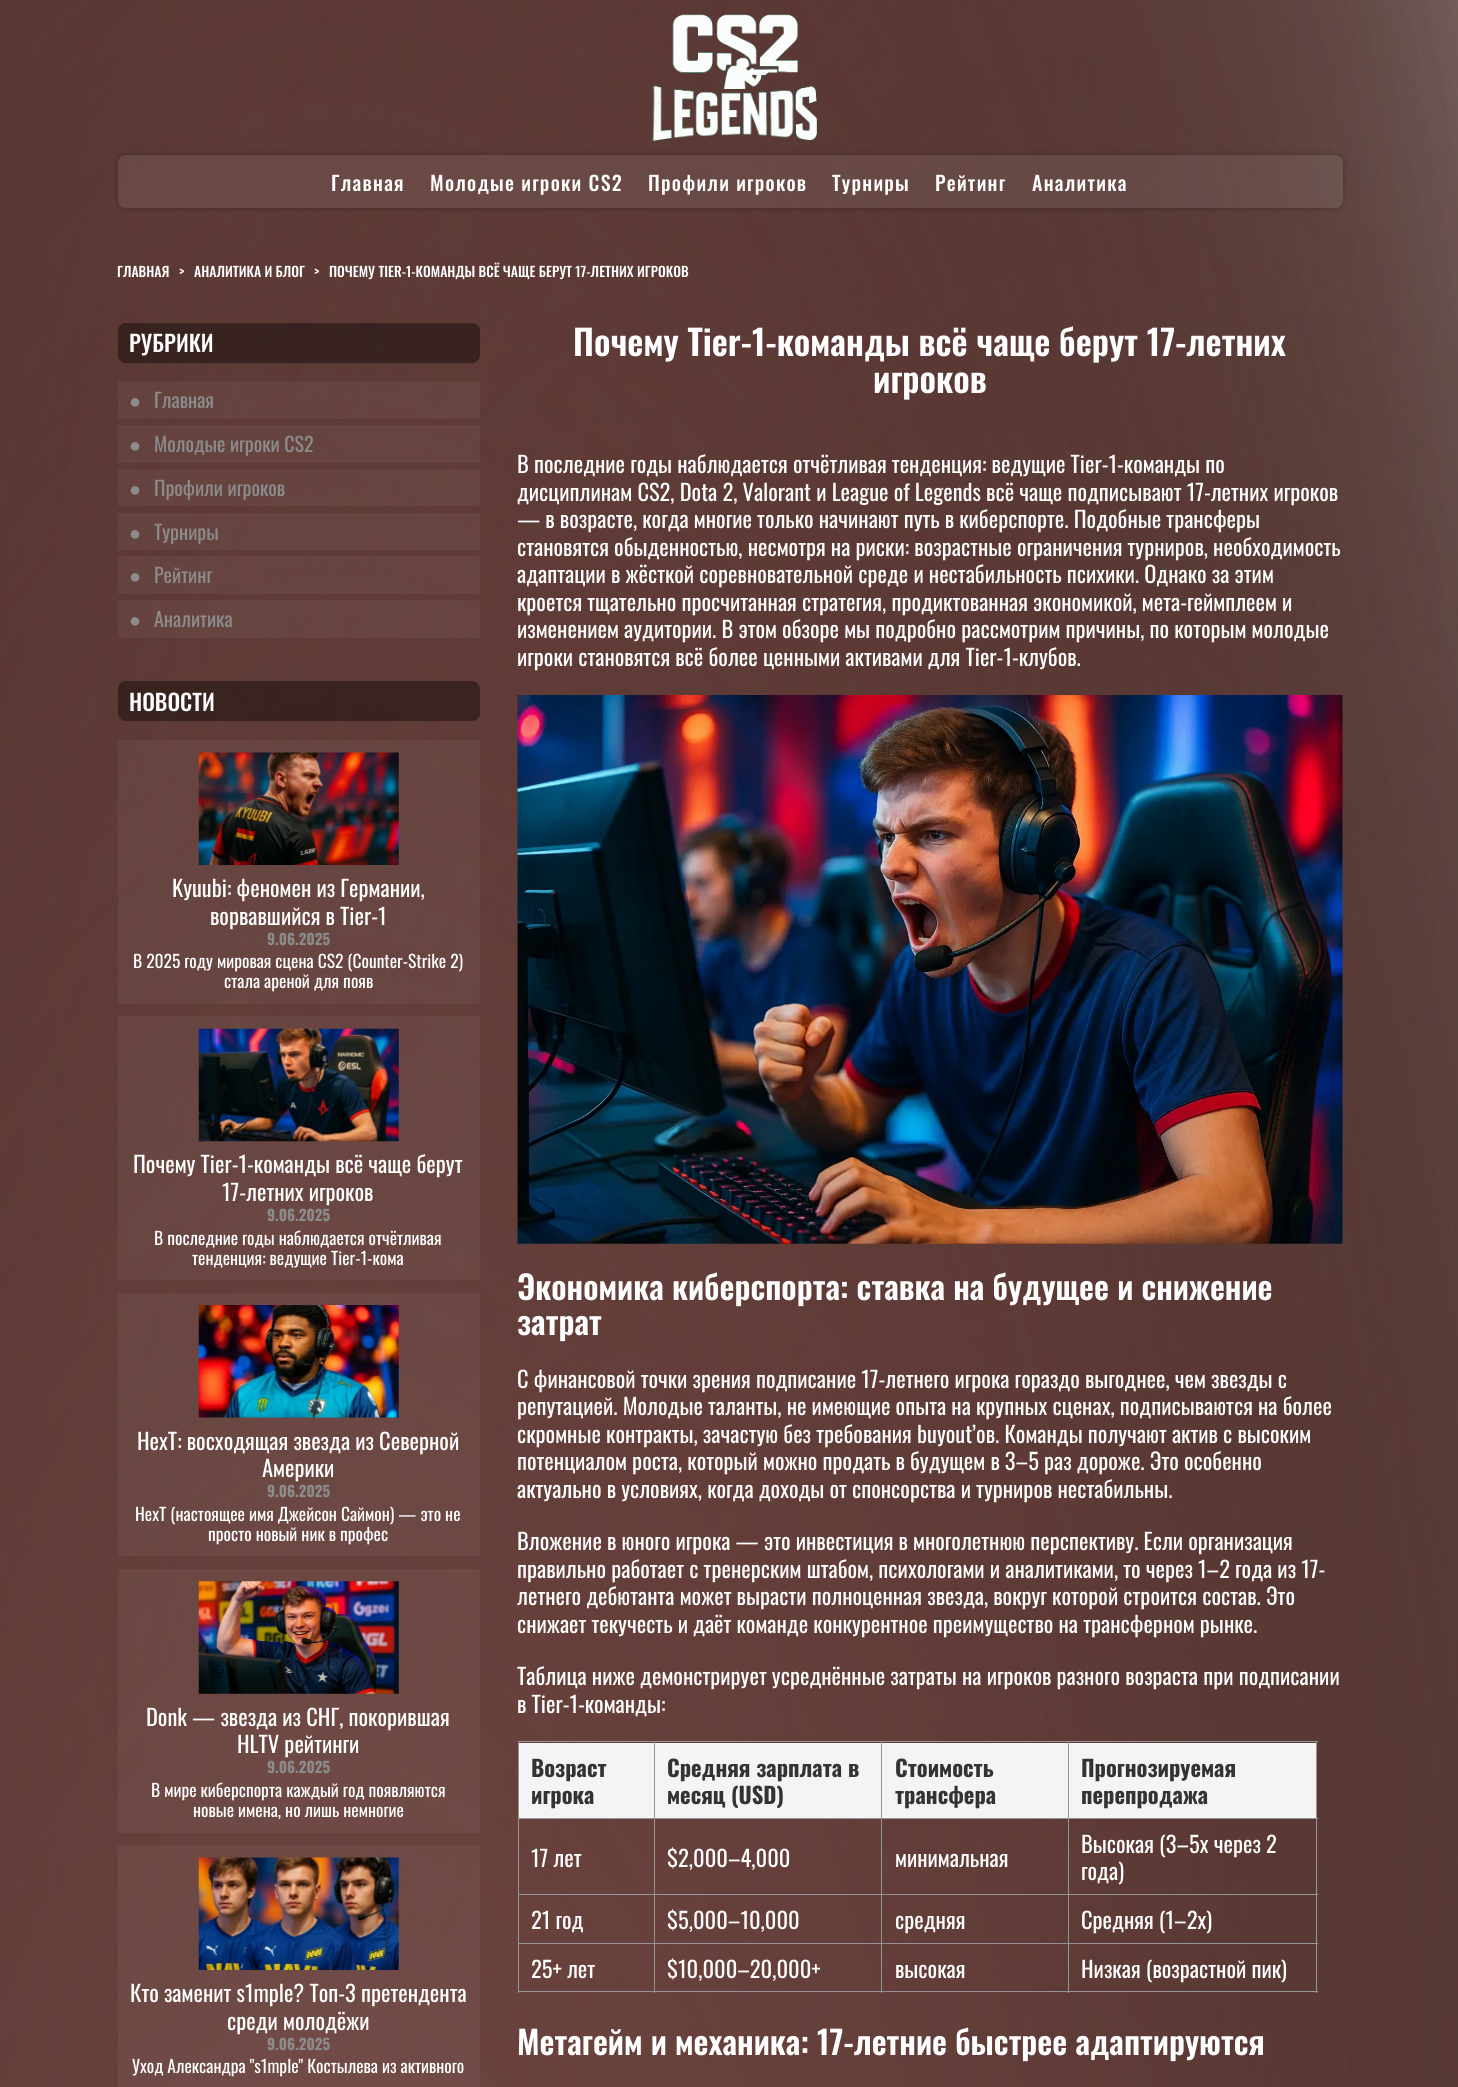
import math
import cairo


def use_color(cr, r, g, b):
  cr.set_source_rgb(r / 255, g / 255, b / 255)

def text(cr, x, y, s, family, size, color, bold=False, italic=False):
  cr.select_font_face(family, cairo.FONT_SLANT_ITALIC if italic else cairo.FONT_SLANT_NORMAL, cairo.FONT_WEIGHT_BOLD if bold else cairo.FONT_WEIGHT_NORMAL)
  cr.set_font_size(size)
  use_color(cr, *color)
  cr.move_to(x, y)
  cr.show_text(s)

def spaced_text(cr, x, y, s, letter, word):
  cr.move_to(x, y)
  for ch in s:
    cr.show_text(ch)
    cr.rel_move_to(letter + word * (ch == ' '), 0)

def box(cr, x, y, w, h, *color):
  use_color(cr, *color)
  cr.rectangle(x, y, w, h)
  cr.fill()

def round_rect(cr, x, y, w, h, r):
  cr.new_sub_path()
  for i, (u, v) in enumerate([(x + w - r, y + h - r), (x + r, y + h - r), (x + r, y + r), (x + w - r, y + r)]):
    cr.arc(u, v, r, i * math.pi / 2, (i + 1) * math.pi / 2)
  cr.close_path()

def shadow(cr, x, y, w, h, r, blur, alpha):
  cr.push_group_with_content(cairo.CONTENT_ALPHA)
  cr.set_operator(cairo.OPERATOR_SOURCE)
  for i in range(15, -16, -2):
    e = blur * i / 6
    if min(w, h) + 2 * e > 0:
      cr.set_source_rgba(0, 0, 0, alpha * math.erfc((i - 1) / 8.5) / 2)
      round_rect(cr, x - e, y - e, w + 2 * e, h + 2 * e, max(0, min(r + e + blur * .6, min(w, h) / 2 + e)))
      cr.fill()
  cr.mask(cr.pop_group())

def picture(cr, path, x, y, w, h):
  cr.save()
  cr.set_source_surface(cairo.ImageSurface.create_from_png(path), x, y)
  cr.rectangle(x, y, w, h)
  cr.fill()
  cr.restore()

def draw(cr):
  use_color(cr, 255, 255, 255)
  cr.paint()
  gradient = cairo.RadialGradient(0, 0, 0, 0, 0, 1)
  gradient.set_matrix(cairo.Matrix(1 / 1697, 0, 0, 1 / 6977, -1 * 259 / 1697, -1 * 4933 / 6977))
  gradient.add_color_stop_rgba(0, 0.361, 0.224, 0.208, 1)
  gradient.add_color_stop_rgba(1, 1, 1, 1, 1)
  cr.set_source(gradient)
  cr.rectangle(0, 0, 1458, 2087)
  cr.fill()
  gradient = cairo.RadialGradient(0, 0, 0, 0, 0, 1)
  gradient.set_matrix(cairo.Matrix(1 / 1876, 0, 0, 1 / 7497, -1 * 132 / 1876, -1 * 782 / 7497))
  gradient.add_color_stop_rgba(0, 0.478, 0.298, 0.278, 1)
  gradient.add_color_stop_rgba(1, 0.478, 0.298, 0.278, 0)
  cr.set_source(gradient)
  cr.rectangle(0, 0, 1458, 2087)
  cr.fill()
  gradient = cairo.RadialGradient(0, 0, 0, 0, 0, 1)
  gradient.set_matrix(cairo.Matrix(1 / 1970, 0, 0, 1 / 5617, -1 * 66 / 1970, -1 * 2112 / 5617))
  gradient.add_color_stop_rgba(0, 0.122, 0.075, 0.071, 1)
  gradient.add_color_stop_rgba(1, 0.122, 0.075, 0.071, 0)
  cr.set_source(gradient)
  cr.rectangle(0, 0, 1458, 2087)
  cr.fill()
  gradient = cairo.RadialGradient(0, 0, 0, 0, 0, 1)
  gradient.set_matrix(cairo.Matrix(1 / 2003, 0, 0, 1 / 7352, -1 * 1416 / 2003, -1 * 5199 / 7352))
  gradient.add_color_stop_rgba(0, 0.239, 0.149, 0.137, 1)
  gradient.add_color_stop_rgba(1, 0.239, 0.149, 0.137, 0)
  cr.set_source(gradient)
  cr.rectangle(0, 0, 1458, 2087)
  cr.fill()
  gradient = cairo.RadialGradient(0, 0, 0, 0, 0, 1)
  gradient.set_matrix(cairo.Matrix(1 / 1104, 0, 0, 1 / 7652, -1 * 678 / 1104, -1 * 673 / 7652))
  gradient.add_color_stop_rgba(0, 0.361, 0.224, 0.208, 1)
  gradient.add_color_stop_rgba(1, 0.361, 0.224, 0.208, 0)
  cr.set_source(gradient)
  cr.rectangle(0, 0, 1458, 2087)
  cr.fill()
  gradient = cairo.RadialGradient(0, 0, 0, 0, 0, 1)
  gradient.set_matrix(cairo.Matrix(1 / 1259, 0, 0, 1 / 8429, -1 * 569 / 1259, -1 * 5960 / 8429))
  gradient.add_color_stop_rgba(0, 0.478, 0.298, 0.278, 1)
  gradient.add_color_stop_rgba(1, 0.478, 0.298, 0.278, 0)
  cr.set_source(gradient)
  cr.rectangle(0, 0, 1458, 2087)
  cr.fill()
  gradient = cairo.RadialGradient(0, 0, 0, 0, 0, 1)
  gradient.set_matrix(cairo.Matrix(1 / 1341, 0, 0, 1 / 6781, -1 * 510 / 1341, -1 * 4795 / 6781))
  gradient.add_color_stop_rgba(0, 0.122, 0.075, 0.071, 1)
  gradient.add_color_stop_rgba(1, 0.122, 0.075, 0.071, 0)
  cr.set_source(gradient)
  cr.rectangle(0, 0, 1458, 2087)
  cr.fill()
  gradient = cairo.RadialGradient(0, 0, 0, 0, 0, 1)
  gradient.set_matrix(cairo.Matrix(1 / 1498, 0, 0, 1 / 6752, -1 * 1059 / 1498, -1 * 4775 / 6752))
  gradient.add_color_stop_rgba(0, 0.239, 0.149, 0.137, 1)
  gradient.add_color_stop_rgba(1, 0.239, 0.149, 0.137, 0)
  cr.set_source(gradient)
  cr.rectangle(262, 0, 1196, 2087)
  cr.fill()
  gradient = cairo.RadialGradient(0, 0, 0, 0, 0, 1)
  gradient.set_matrix(cairo.Matrix(1 / 1177, 0, 0, 1 / 7163, -1 * 627 / 1177, -1 * 5065 / 7163))
  gradient.add_color_stop_rgba(0, 0.361, 0.224, 0.208, 1)
  gradient.add_color_stop_rgba(1, 0.361, 0.224, 0.208, 0)
  cr.set_source(gradient)
  cr.rectangle(0, 0, 1458, 2087)
  cr.fill()
  gradient = cairo.RadialGradient(0, 0, 0, 0, 0, 1)
  gradient.set_matrix(cairo.Matrix(1 / 1587, 0, 0, 1 / 5996, -1 * 336 / 1587, -1 * 4239 / 5996))
  gradient.add_color_stop_rgba(0, 0.478, 0.298, 0.278, 1)
  gradient.add_color_stop_rgba(1, 0.478, 0.298, 0.278, 0)
  cr.set_source(gradient)
  cr.rectangle(0, 0, 1458, 2087)
  cr.fill()
  picture(cr, "img_01.png", 652, 14, 166, 128)
  cr.save()
  cr.set_fill_rule(cairo.FILL_RULE_EVEN_ODD)
  cr.new_path()
  cr.move_to(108, 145)
  cr.line_to(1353, 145)
  cr.line_to(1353, 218)
  cr.line_to(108, 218)
  cr.close_path()
  cr.move_to(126, 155)
  cr.line_to(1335, 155)
  cr.curve_to(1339.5, 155, 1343, 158.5, 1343, 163)
  cr.line_to(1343, 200)
  cr.curve_to(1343, 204.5, 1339.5, 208, 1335, 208)
  cr.line_to(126, 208)
  cr.curve_to(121.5, 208, 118, 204.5, 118, 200)
  cr.line_to(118, 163)
  cr.curve_to(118, 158.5, 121.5, 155, 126, 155)
  cr.close_path()
  cr.clip()
  use_color(cr, 0, 0, 0)
  shadow(cr, 118, 155, 1225, 53, 8, 3, 0.3)
  cr.restore()
  cr.set_source_rgba(1, 1, 1, 0.08)
  round_rect(cr, 118, 155, 1225, 53, 8)
  cr.fill()
  cr.set_source_rgba(0, 0, 0, 0.4)
  round_rect(cr, 118, 323, 362, 40, 8)
  cr.fill()
  cr.set_source_rgba(1, 1, 1, 0.05)
  cr.rectangle(118, 381, 362, 38)
  cr.fill()
  cr.rectangle(118, 425, 362, 38)
  cr.fill()
  cr.rectangle(118, 469, 362, 37)
  cr.fill()
  cr.rectangle(118, 513, 362, 37)
  cr.fill()
  cr.rectangle(118, 556, 362, 38)
  cr.fill()
  cr.rectangle(118, 600, 362, 38)
  cr.fill()
  cr.set_source_rgba(0, 0, 0, 0.4)
  round_rect(cr, 118, 681, 362, 40, 8)
  cr.fill()
  cr.set_source_rgba(1, 1, 1, 0.05)
  cr.rectangle(118, 740, 362, 264)
  cr.fill()
  picture(cr, "img_02.png", 198, 752, 201, 113)
  cr.rectangle(118, 1016, 362, 264)
  cr.fill()
  picture(cr, "img_03.png", 198, 1028, 201, 114)
  cr.rectangle(118, 1293, 362, 263)
  cr.fill()
  picture(cr, "img_04.png", 198, 1305, 201, 113)
  cr.rectangle(118, 1569, 362, 264)
  cr.fill()
  picture(cr, "img_05.png", 198, 1581, 201, 113)
  cr.rectangle(118, 1845, 362, 242)
  cr.fill()
  picture(cr, "img_06.png", 198, 1857, 201, 113)
  picture(cr, "img_07.png", 517, 695, 826, 549)
  box(cr, 518, 1741, 800, 1, 149, 149, 150)
  box(cr, 518, 1741, 1, 252, 149, 149, 150)
  box(cr, 519, 1743, 135, 75, 244, 244, 244)
  box(cr, 1316, 1741, 1, 252, 149, 149, 150)
  box(cr, 1068, 1991, 250, 1, 149, 149, 150)
  box(cr, 1068, 1943, 1, 50, 149, 149, 150)
  box(cr, 1068, 1943, 250, 1, 149, 149, 150)
  box(cr, 1068, 1894, 1, 50, 149, 149, 150)
  box(cr, 1068, 1894, 250, 1, 149, 149, 150)
  box(cr, 1068, 1818, 1, 77, 149, 149, 150)
  box(cr, 1068, 1818, 250, 1, 149, 149, 150)
  box(cr, 1068, 1741, 1, 78, 149, 149, 150)
  box(cr, 881, 1991, 188, 1, 149, 149, 150)
  box(cr, 881, 1943, 1, 50, 149, 149, 150)
  box(cr, 881, 1943, 188, 1, 149, 149, 150)
  box(cr, 881, 1894, 1, 50, 149, 149, 150)
  box(cr, 881, 1894, 188, 1, 149, 149, 150)
  box(cr, 881, 1818, 1, 77, 149, 149, 150)
  box(cr, 881, 1818, 188, 1, 149, 149, 150)
  box(cr, 881, 1741, 1, 78, 149, 149, 150)
  box(cr, 654, 1991, 229, 1, 149, 149, 150)
  box(cr, 654, 1943, 1, 50, 149, 149, 150)
  box(cr, 654, 1943, 229, 1, 149, 149, 150)
  box(cr, 654, 1894, 1, 50, 149, 149, 150)
  box(cr, 654, 1894, 229, 1, 149, 149, 150)
  box(cr, 654, 1818, 1, 77, 149, 149, 150)
  box(cr, 654, 1818, 229, 1, 149, 149, 150)
  box(cr, 654, 1741, 1, 78, 149, 149, 150)
  box(cr, 518, 1818, 137, 1, 149, 149, 150)
  box(cr, 655, 1743, 226, 75, 244, 244, 244)
  box(cr, 882, 1743, 186, 75, 244, 244, 244)
  box(cr, 1069, 1743, 247, 75, 244, 244, 244)
  box(cr, 518, 1894, 137, 1, 149, 149, 150)
  box(cr, 518, 1943, 137, 1, 149, 149, 150)
  box(cr, 518, 1991, 137, 1, 149, 149, 150)
  cr.select_font_face("Oswald Medium")
  cr.set_font_size(20)
  use_color(cr, 255, 255, 255)
  spaced_text(cr, 331, 191, "Главная", 1.25, 0)
  spaced_text(cr, 430, 191, "Молодые игроки CS2", 1.25, 0)
  spaced_text(cr, 648, 191, "Профили игроков", 1.25, 0)
  spaced_text(cr, 832, 191, "Турниры", 1.25, 0)
  spaced_text(cr, 935, 191, "Рейтинг", 1.25, 0)
  spaced_text(cr, 1032, 191, "Аналитика", 1.25, 0)
  text(cr, 117, 277, "ГЛАВНАЯ", "Oswald Medium", 13.75, (255, 255, 255))
  text(cr, 179, 277, ">", "Oswald Medium", 13.75, (255, 255, 255))
  text(cr, 194, 277, "АНАЛИТИКА И БЛОГ", "Oswald Medium", 13.75, (255, 255, 255))
  text(cr, 314, 277, ">", "Oswald Medium", 13.75, (255, 255, 255))
  text(cr, 329, 277, "ПОЧЕМУ TIER-1-КОМАНДЫ ВСЁ ЧАЩЕ БЕРУТ 17-ЛЕТНИХ ИГРОКОВ", "Oswald Medium", 13.75, (255, 255, 255))
  text(cr, 129, 352, "РУБРИКИ", "Oswald Medium", 22.5, (255, 255, 255))
  text(cr, 129, 408, "●", "Liberation Serif", 20, (140, 140, 140))
  text(cr, 154, 408, "Главная", "Oswald", 20, (140, 140, 140))
  text(cr, 129, 452, "●", "Liberation Serif", 20, (140, 140, 140))
  text(cr, 154, 452, "Молодые игроки CS2", "Oswald", 20, (140, 140, 140))
  text(cr, 129, 496, "●", "Liberation Serif", 20, (140, 140, 140))
  text(cr, 154, 496, "Профили игроков", "Oswald", 20, (140, 140, 140))
  text(cr, 129, 540, "●", "Liberation Serif", 20, (140, 140, 140))
  text(cr, 154, 540, "Турниры", "Oswald", 20, (140, 140, 140))
  text(cr, 129, 583, "●", "Liberation Serif", 20, (140, 140, 140))
  text(cr, 154, 583, "Рейтинг", "Oswald", 20, (140, 140, 140))
  text(cr, 129, 627, "●", "Liberation Serif", 20, (140, 140, 140))
  text(cr, 154, 627, "Аналитика", "Oswald", 20, (140, 140, 140))
  text(cr, 129, 711, "НОВОСТИ", "Oswald Medium", 22.5, (255, 255, 255))
  text(cr, 172, 897, "Kyuubi: феномен из Германии,", "Oswald", 22.5, (255, 255, 255))
  text(cr, 210, 925, "ворвавшийся в Tier-1", "Oswald", 22.5, (255, 255, 255))
  text(cr, 267, 945, "9.06.2025", "Oswald", 15, (140, 140, 140), bold=True)
  text(cr, 133, 968, "В 2025 году мировая сцена CS2 (Counter-Strike 2)", "Oswald", 17.5, (255, 255, 255))
  text(cr, 224, 988, "стала ареной для появ", "Oswald", 17.5, (255, 255, 255))
  text(cr, 133, 1173, "Почему Tier-1-команды всё чаще берут", "Oswald", 22.5, (255, 255, 255))
  text(cr, 222, 1201, "17-летних игроков", "Oswald", 22.5, (255, 255, 255))
  text(cr, 267, 1221, "9.06.2025", "Oswald", 15, (140, 140, 140), bold=True)
  text(cr, 154, 1245, "В последние годы наблюдается отчётливая", "Oswald", 17.5, (255, 255, 255))
  text(cr, 192, 1265, "тенденция: ведущие Tier-1-кома", "Oswald", 17.5, (255, 255, 255))
  text(cr, 137, 1450, "HexT: восходящая звезда из Северной", "Oswald", 22.5, (255, 255, 255))
  text(cr, 262, 1477, "Америки", "Oswald", 22.5, (255, 255, 255))
  text(cr, 267, 1497, "9.06.2025", "Oswald", 15, (140, 140, 140), bold=True)
  text(cr, 135, 1521, "HexT (настоящее имя Джейсон Саймон) — это не", "Oswald", 17.5, (255, 255, 255))
  text(cr, 208, 1541, "просто новый ник в профес", "Oswald", 17.5, (255, 255, 255))
  text(cr, 146, 1726, "Donk — звезда из СНГ, покорившая", "Oswald", 22.5, (255, 255, 255))
  text(cr, 237, 1753, "HLTV рейтинги", "Oswald", 22.5, (255, 255, 255))
  text(cr, 267, 1773, "9.06.2025", "Oswald", 15, (140, 140, 140), bold=True)
  text(cr, 151, 1797, "В мире киберспорта каждый год появляются", "Oswald", 17.5, (255, 255, 255))
  text(cr, 193, 1817, "новые имена, но лишь немногие", "Oswald", 17.5, (255, 255, 255))
  text(cr, 130, 2002, "Кто заменит s1mple? Топ-3 претендента", "Oswald", 22.5, (255, 255, 255))
  text(cr, 227, 2030, "среди молодёжи", "Oswald", 22.5, (255, 255, 255))
  text(cr, 267, 2050, "9.06.2025", "Oswald", 15, (140, 140, 140), bold=True)
  text(cr, 132, 2073, "Уход Александра \"s1mple\" Костылева из активного", "Oswald", 17.5, (255, 255, 255))
  text(cr, 573, 356, "Почему Tier-1-команды всё чаще берут 17-летних", "Oswald SemiBold", 35, (255, 255, 255))
  text(cr, 873, 393, "игроков", "Oswald SemiBold", 35, (255, 255, 255))
  text(cr, 517, 473, "В последние годы наблюдается отчётливая тенденция: ведущие Tier-1-команды по", "Oswald", 22.5, (255, 255, 255))
  text(cr, 517, 501, "дисциплинам CS2, Dota 2, Valorant и League of Legends всё чаще подписывают 17-летних игроков", "Oswald", 22.5, (255, 255, 255))
  text(cr, 517, 528, "— в возрасте, когда многие только начинают путь в киберспорте. Подобные трансферы", "Oswald", 22.5, (255, 255, 255))
  text(cr, 517, 556, "становятся обыденностью, несмотря на риски: возрастные ограничения турниров, необходимость", "Oswald", 22.5, (255, 255, 255))
  text(cr, 517, 583, "адаптации в жёсткой соревновательной среде и нестабильность психики. Однако за этим", "Oswald", 22.5, (255, 255, 255))
  text(cr, 517, 611, "кроется тщательно просчитанная стратегия, продиктованная экономикой, мета-геймплеем и", "Oswald", 22.5, (255, 255, 255))
  text(cr, 517, 638, "изменением аудитории. В этом обзоре мы подробно рассмотрим причины, по которым молодые", "Oswald", 22.5, (255, 255, 255))
  text(cr, 517, 666, "игроки становятся всё более ценными активами для Tier-1-клубов.", "Oswald", 22.5, (255, 255, 255))
  text(cr, 517, 1300, "Экономика киберспорта: ставка на будущее и снижение", "Oswald SemiBold", 32.5, (255, 255, 255))
  text(cr, 517, 1335, "затрат", "Oswald SemiBold", 32.5, (255, 255, 255))
  text(cr, 517, 1388, "С финансовой точки зрения подписание 17-летнего игрока гораздо выгоднее, чем звезды с", "Oswald", 22.5, (255, 255, 255))
  text(cr, 517, 1415, "репутацией. Молодые таланты, не имеющие опыта на крупных сценах, подписываются на более", "Oswald", 22.5, (255, 255, 255))
  text(cr, 517, 1443, "скромные контракты, зачастую без требования buyout’ов. Команды получают актив с высоким", "Oswald", 22.5, (255, 255, 255))
  text(cr, 517, 1470, "потенциалом роста, который можно продать в будущем в 3–5 раз дороже. Это особенно", "Oswald", 22.5, (255, 255, 255))
  text(cr, 517, 1498, "актуально в условиях, когда доходы от спонсорства и турниров нестабильны.", "Oswald", 22.5, (255, 255, 255))
  text(cr, 517, 1550, "Вложение в юного игрока — это инвестиция в многолетнюю перспективу. Если организация", "Oswald", 22.5, (255, 255, 255))
  text(cr, 517, 1578, "правильно работает с тренерским штабом, психологами и аналитиками, то через 1–2 года из 17-", "Oswald", 22.5, (255, 255, 255))
  text(cr, 517, 1605, "летнего дебютанта может вырасти полноценная звезда, вокруг которой строится состав. Это", "Oswald", 22.5, (255, 255, 255))
  text(cr, 517, 1633, "снижает текучесть и даёт команде конкурентное преимущество на трансферном рынке.", "Oswald", 22.5, (255, 255, 255))
  text(cr, 517, 1685, "Таблица ниже демонстрирует усреднённые затраты на игроков разного возраста при подписании", "Oswald", 22.5, (255, 255, 255))
  text(cr, 517, 1713, "в Tier-1-команды:", "Oswald", 22.5, (255, 255, 255))
  text(cr, 531, 1777, "Возраст", "Oswald", 22.5, (51, 51, 51), bold=True)
  text(cr, 531, 1804, "игрока", "Oswald", 22.5, (51, 51, 51), bold=True)
  text(cr, 667, 1777, "Средняя зарплата в", "Oswald", 22.5, (51, 51, 51), bold=True)
  text(cr, 667, 1804, "месяц (USD)", "Oswald", 22.5, (51, 51, 51), bold=True)
  text(cr, 895, 1777, "Стоимость", "Oswald", 22.5, (51, 51, 51), bold=True)
  text(cr, 895, 1804, "трансфера", "Oswald", 22.5, (51, 51, 51), bold=True)
  text(cr, 1081, 1777, "Прогнозируемая", "Oswald", 22.5, (51, 51, 51), bold=True)
  text(cr, 1081, 1804, "перепродажа", "Oswald", 22.5, (51, 51, 51), bold=True)
  text(cr, 531, 1867, "17 лет", "Oswald", 22.5, (255, 255, 255))
  text(cr, 667, 1867, "$2,000–4,000", "Oswald", 22.5, (255, 255, 255))
  text(cr, 895, 1867, "минимальная", "Oswald", 22.5, (255, 255, 255))
  text(cr, 1081, 1853, "Высокая (3–5x через 2", "Oswald", 22.5, (255, 255, 255))
  text(cr, 1081, 1880, "года)", "Oswald", 22.5, (255, 255, 255))
  text(cr, 531, 1929, "21 год", "Oswald", 22.5, (255, 255, 255))
  text(cr, 667, 1929, "$5,000–10,000", "Oswald", 22.5, (255, 255, 255))
  text(cr, 895, 1929, "средняя", "Oswald", 22.5, (255, 255, 255))
  text(cr, 1081, 1929, "Средняя (1–2x)", "Oswald", 22.5, (255, 255, 255))
  text(cr, 531, 1978, "25+ лет", "Oswald", 22.5, (255, 255, 255))
  text(cr, 667, 1978, "$10,000–20,000+", "Oswald", 22.5, (255, 255, 255))
  text(cr, 895, 1978, "высокая", "Oswald", 22.5, (255, 255, 255))
  text(cr, 1081, 1978, "Низкая (возрастной пик)", "Oswald", 22.5, (255, 255, 255))
  text(cr, 517, 2055, "Метагейм и механика: 17-летние быстрее адаптируются", "Oswald SemiBold", 32.5, (255, 255, 255))


surface = cairo.ImageSurface(cairo.FORMAT_RGB24, 1458, 2087)
cr = cairo.Context(surface)
options = cairo.FontOptions()
options.set_hint_metrics(cairo.HINT_METRICS_OFF)
options.set_hint_style(cairo.HINT_STYLE_NONE)
cr.set_font_options(options)
cr.set_miter_limit(4)
draw(cr)
surface.write_to_png("out.png")
